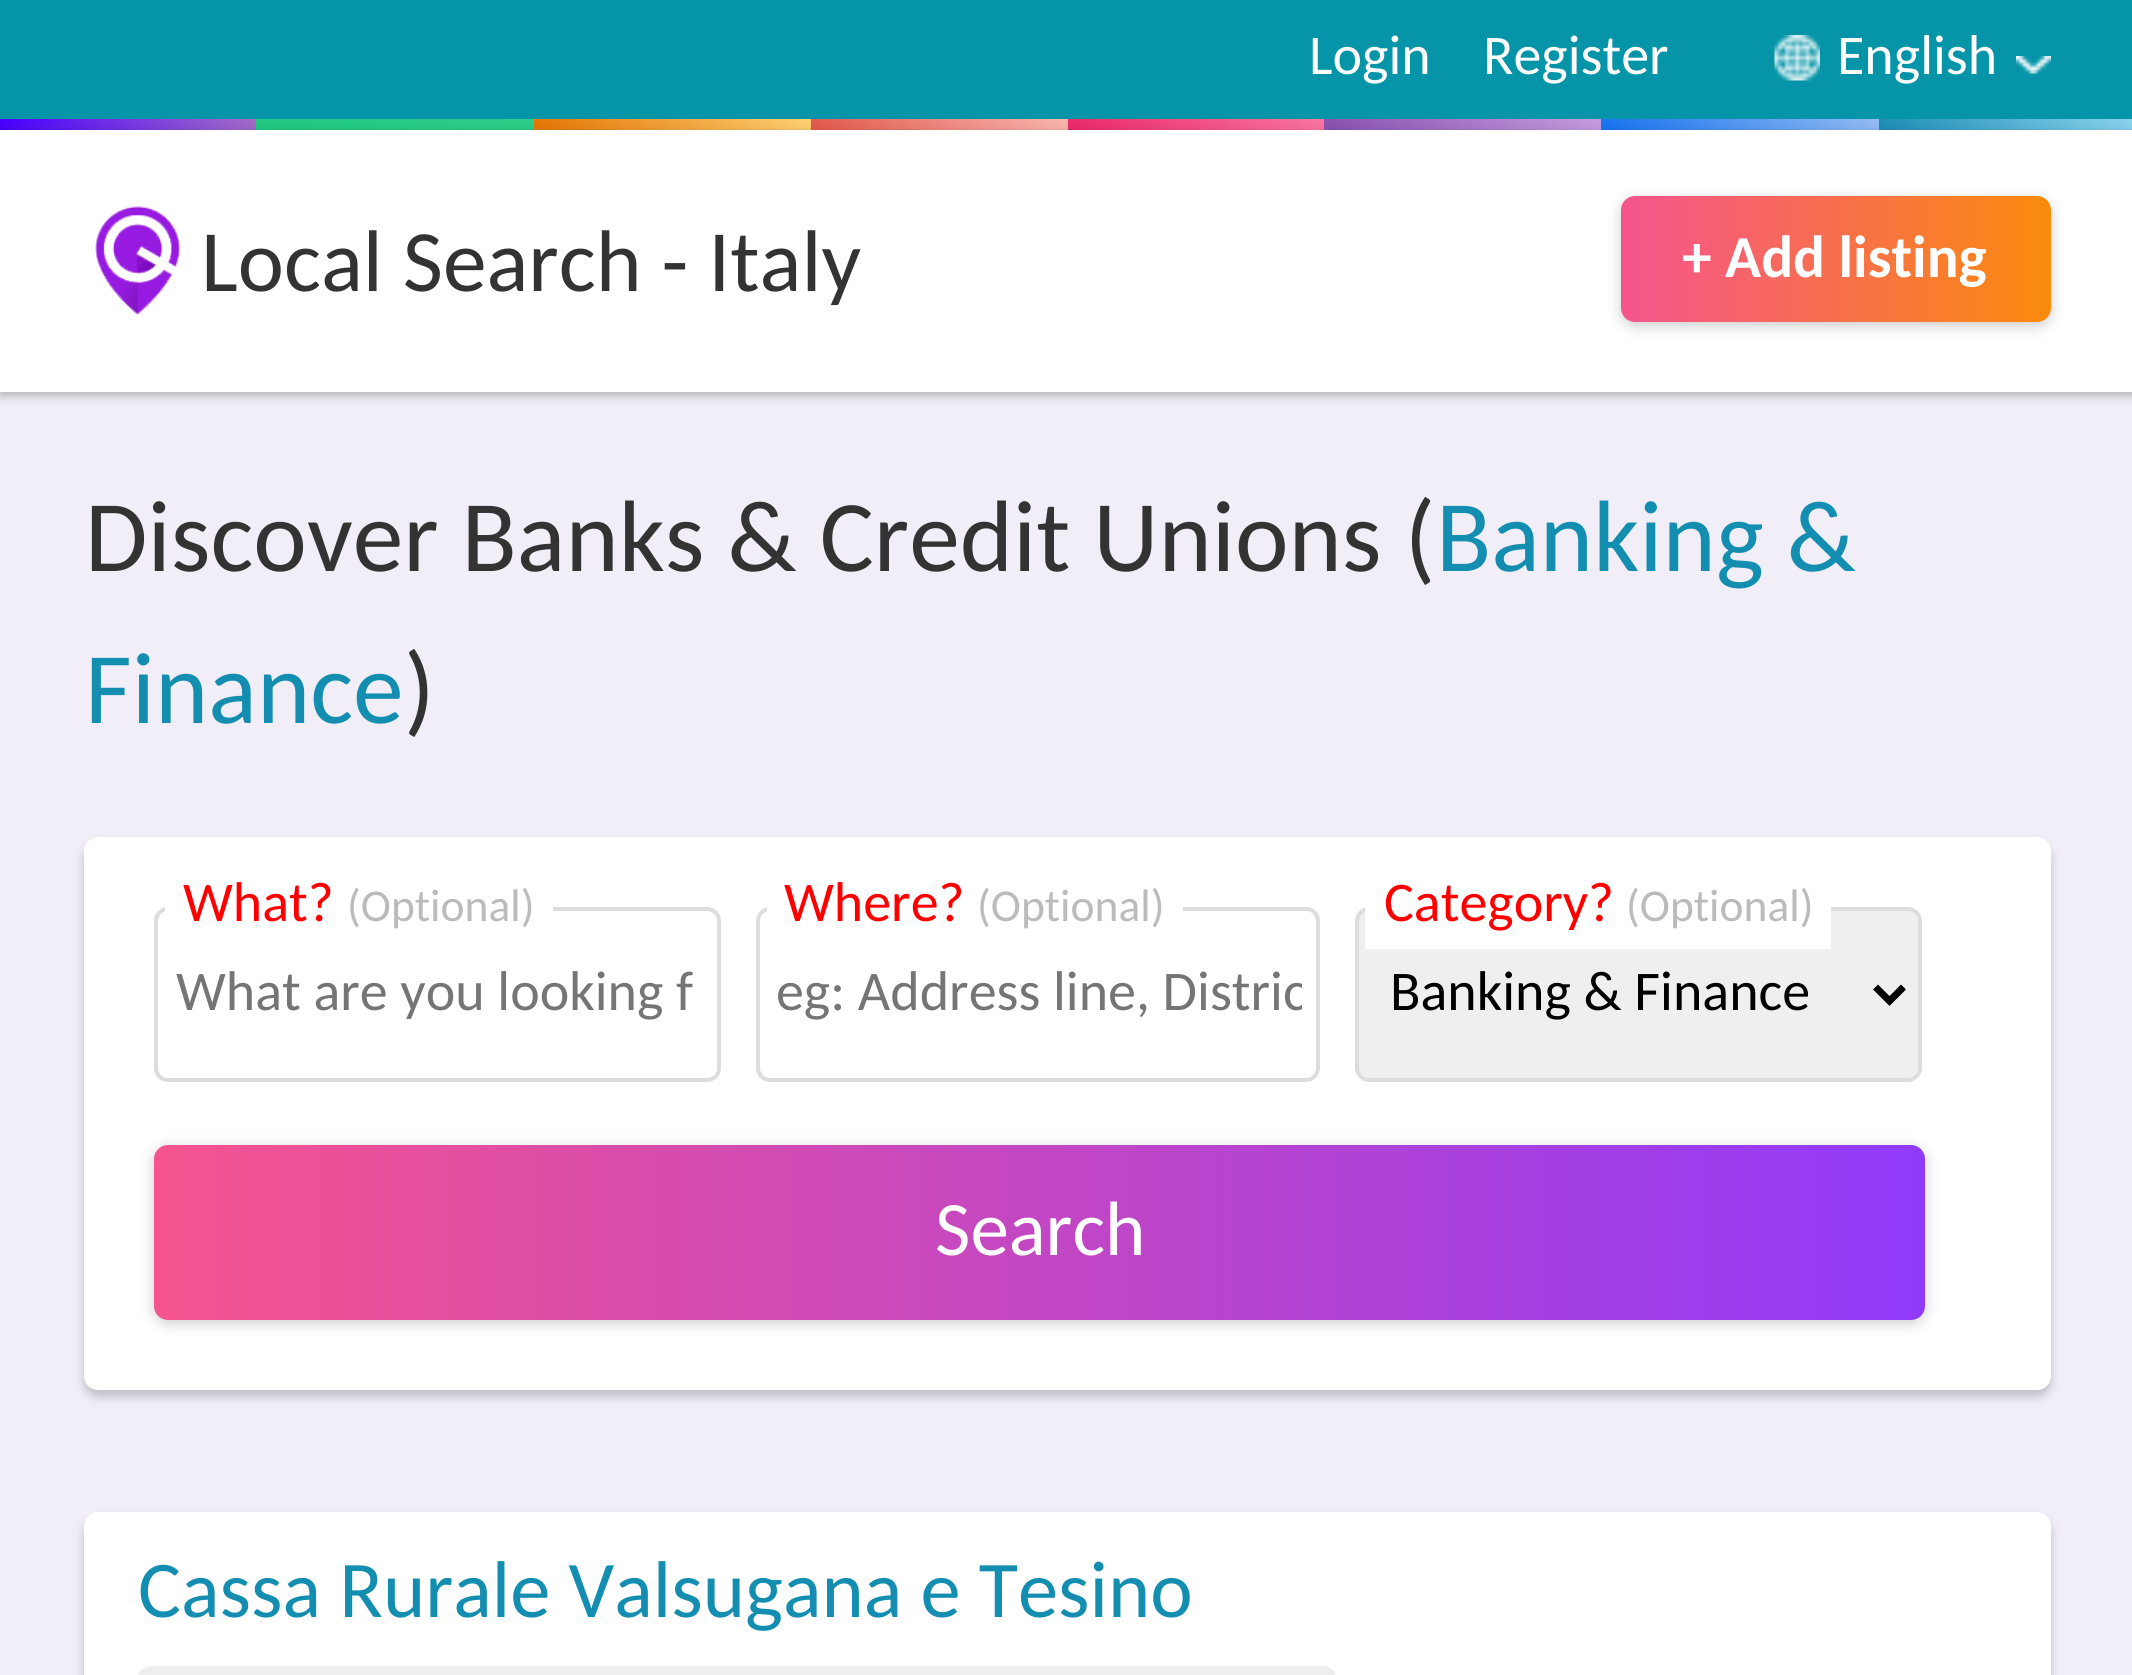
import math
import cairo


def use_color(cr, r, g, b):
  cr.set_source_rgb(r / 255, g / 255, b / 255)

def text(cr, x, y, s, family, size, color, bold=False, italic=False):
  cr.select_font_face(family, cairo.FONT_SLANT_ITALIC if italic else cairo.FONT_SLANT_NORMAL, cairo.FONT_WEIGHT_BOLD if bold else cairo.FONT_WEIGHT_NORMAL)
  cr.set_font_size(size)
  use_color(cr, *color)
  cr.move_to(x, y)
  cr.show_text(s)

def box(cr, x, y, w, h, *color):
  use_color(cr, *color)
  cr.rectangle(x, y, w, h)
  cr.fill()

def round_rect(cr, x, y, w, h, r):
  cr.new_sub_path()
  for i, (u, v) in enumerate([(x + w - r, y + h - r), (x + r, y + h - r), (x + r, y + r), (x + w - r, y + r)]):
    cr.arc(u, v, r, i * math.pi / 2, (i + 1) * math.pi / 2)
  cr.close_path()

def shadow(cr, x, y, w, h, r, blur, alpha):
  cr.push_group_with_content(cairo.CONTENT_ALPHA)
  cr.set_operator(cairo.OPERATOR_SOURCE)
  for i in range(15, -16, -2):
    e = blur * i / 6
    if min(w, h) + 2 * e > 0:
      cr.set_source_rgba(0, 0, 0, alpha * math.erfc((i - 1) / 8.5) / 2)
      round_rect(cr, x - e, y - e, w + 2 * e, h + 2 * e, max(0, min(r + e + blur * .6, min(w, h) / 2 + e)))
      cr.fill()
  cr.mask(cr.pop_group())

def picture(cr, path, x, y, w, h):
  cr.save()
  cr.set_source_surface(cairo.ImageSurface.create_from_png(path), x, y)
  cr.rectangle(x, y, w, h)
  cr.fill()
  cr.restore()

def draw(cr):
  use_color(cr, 241, 238, 247)
  cr.paint()
  box(cr, 0, 0, 2132, 119, 6, 148, 168)
  picture(cr, "img_01.png", 1774, 35, 46, 46)
  picture(cr, "img_02.png", 2016, 56, 35, 18)
  gradient = cairo.LinearGradient(0, 124, 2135, 124)
  gradient.add_color_stop_rgba(0, 0.282, 0.004, 1, 1)
  gradient.add_color_stop_rgba(0.12, 0.639, 0.42, 0.78, 1)
  gradient.add_color_stop_rgba(0.12, 0.125, 0.788, 0.506, 1)
  gradient.add_color_stop_rgba(0.25, 0.176, 0.808, 0.537, 1)
  gradient.add_color_stop_rgba(0.25, 0.902, 0.463, 0.02, 1)
  gradient.add_color_stop_rgba(0.38, 0.996, 0.812, 0.443, 1)
  gradient.add_color_stop_rgba(0.38, 0.894, 0.353, 0.302, 1)
  gradient.add_color_stop_rgba(0.5, 0.973, 0.71, 0.682, 1)
  gradient.add_color_stop_rgba(0.5, 0.925, 0.161, 0.42, 1)
  gradient.add_color_stop_rgba(0.62, 0.98, 0.455, 0.631, 1)
  gradient.add_color_stop_rgba(0.62, 0.545, 0.318, 0.69, 1)
  gradient.add_color_stop_rgba(0.75, 0.769, 0.612, 0.871, 1)
  gradient.add_color_stop_rgba(0.75, 0.094, 0.455, 0.941, 1)
  gradient.add_color_stop_rgba(0.88, 0.573, 0.733, 0.957, 1)
  gradient.add_color_stop_rgba(0.88, 0.114, 0.557, 0.714, 1)
  gradient.add_color_stop_rgba(1, 0.537, 0.827, 0.933, 1)
  cr.set_source(gradient)
  cr.rectangle(0, 119, 2132, 11)
  cr.fill()
  use_color(cr, 0, 0, 0)
  shadow(cr, 0, 133, 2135, 263, 0, 5, 0.25)
  box(cr, 0, 130, 2132, 262, 255, 255, 255)
  picture(cr, "img_03.png", 95, 206, 86, 109)
  use_color(cr, 0, 0, 0)
  shadow(cr, 1621, 200, 430, 126, 14, 7, 0.2)
  gradient = cairo.LinearGradient(1621, 259, 2051, 259)
  gradient.add_color_stop_rgba(0, 0.961, 0.329, 0.557, 1)
  gradient.add_color_stop_rgba(1, 0.98, 0.545, 0.047, 1)
  cr.set_source(gradient)
  round_rect(cr, 1621, 196, 430, 126, 14)
  cr.fill()
  use_color(cr, 0, 0, 0)
  shadow(cr, 84, 844, 1967, 553, 14, 5, 0.2)
  use_color(cr, 255, 255, 255)
  round_rect(cr, 84, 837, 1967, 553, 14)
  cr.fill()
  round_rect(cr, 156, 909, 563, 171, 12)
  use_color(cr, 221, 221, 221)
  cr.set_line_width(4)
  cr.stroke()
  box(cr, 165, 907, 388, 5, 255, 255, 255)
  round_rect(cr, 758, 909, 560, 171, 12)
  use_color(cr, 221, 221, 221)
  cr.stroke()
  box(cr, 767, 907, 416, 5, 255, 255, 255)
  use_color(cr, 239, 239, 239)
  round_rect(cr, 1357, 909, 563, 171, 12)
  cr.fill_preserve()
  use_color(cr, 221, 221, 221)
  cr.stroke()
  box(cr, 1365, 907, 466, 42, 255, 255, 255)
  cr.new_path()
  cr.move_to(1875.5, 987)
  cr.line_to(1889.5, 1001)
  cr.line_to(1903.5, 987)
  use_color(cr, 0, 0, 0)
  cr.set_line_width(7)
  cr.stroke()
  use_color(cr, 0, 0, 0)
  shadow(cr, 154, 1148, 1771, 175, 14, 7, 0.2)
  gradient = cairo.LinearGradient(154, 1232, 1925, 1232)
  gradient.add_color_stop_rgba(0, 0.961, 0.329, 0.557, 1)
  gradient.add_color_stop_rgba(1, 0.565, 0.227, 0.976, 1)
  cr.set_source(gradient)
  round_rect(cr, 154, 1145, 1771, 175, 14)
  cr.fill()
  use_color(cr, 0, 0, 0)
  shadow(cr, 84, 1519, 1967, 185, 14, 5, 0.2)
  use_color(cr, 255, 255, 255)
  round_rect(cr, 84, 1512, 1967, 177, 14)
  cr.fill()
  use_color(cr, 238, 238, 238)
  round_rect(cr, 137, 1666, 1200, 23, 14)
  cr.fill()
  text(cr, 1309, 74, "Login", "Carlito", 56, (255, 255, 255))
  text(cr, 1483, 74, "Register", "Carlito", 56, (255, 255, 255))
  text(cr, 1837, 74, "English", "Carlito", 56, (255, 255, 255))
  text(cr, 201, 291, "Local Search - Italy", "Carlito", 87.5, (51, 51, 51))
  text(cr, 1682, 277, "+ Add listing", "Carlito", 59.5, (255, 255, 255), bold=True)
  text(cr, 85, 571, "Discover Banks & Credit Unions (", "Carlito", 101.5, (51, 51, 51))
  text(cr, 1436, 571, "Banking &", "Carlito", 101.5, (20, 142, 176))
  text(cr, 85, 723, "Finance", "Carlito", 101.5, (20, 142, 176))
  text(cr, 404, 723, ")", "Carlito", 101.5, (51, 51, 51))
  text(cr, 183, 921, "What?", "Carlito", 56, (255, 0, 0))
  text(cr, 347, 921, "(Optional)", "Carlito", 45.5, (187, 187, 187))
  text(cr, 176, 1010, "What are you looking f", "Carlito", 56, (117, 117, 117))
  text(cr, 784, 921, "Where?", "Carlito", 56, (255, 0, 0))
  text(cr, 977, 921, "(Optional)", "Carlito", 45.5, (187, 187, 187))
  cr.save()
  cr.rectangle(777, 959, 525, 67)
  cr.clip()
  text(cr, 776, 1010, "eg: Address line, Distric", "Carlito", 56, (117, 117, 117))
  cr.restore()
  text(cr, 1384, 921, "Category?", "Carlito", 56, (255, 0, 0))
  text(cr, 1626, 921, "(Optional)", "Carlito", 45.5, (187, 187, 187))
  text(cr, 1390, 1010, "Banking & Finance", "Carlito", 56, (0, 0, 0))
  text(cr, 935, 1255, "Search", "Carlito", 77, (255, 255, 255))
  text(cr, 138, 1617, "Cassa Rurale Valsugana e Tesino", "Carlito", 80.5, (20, 142, 176))


surface = cairo.ImageSurface(cairo.FORMAT_RGB24, 2132, 1675)
cr = cairo.Context(surface)
options = cairo.FontOptions()
options.set_hint_metrics(cairo.HINT_METRICS_OFF)
options.set_hint_style(cairo.HINT_STYLE_NONE)
cr.set_font_options(options)
cr.set_miter_limit(4)
draw(cr)
surface.write_to_png("out.png")
